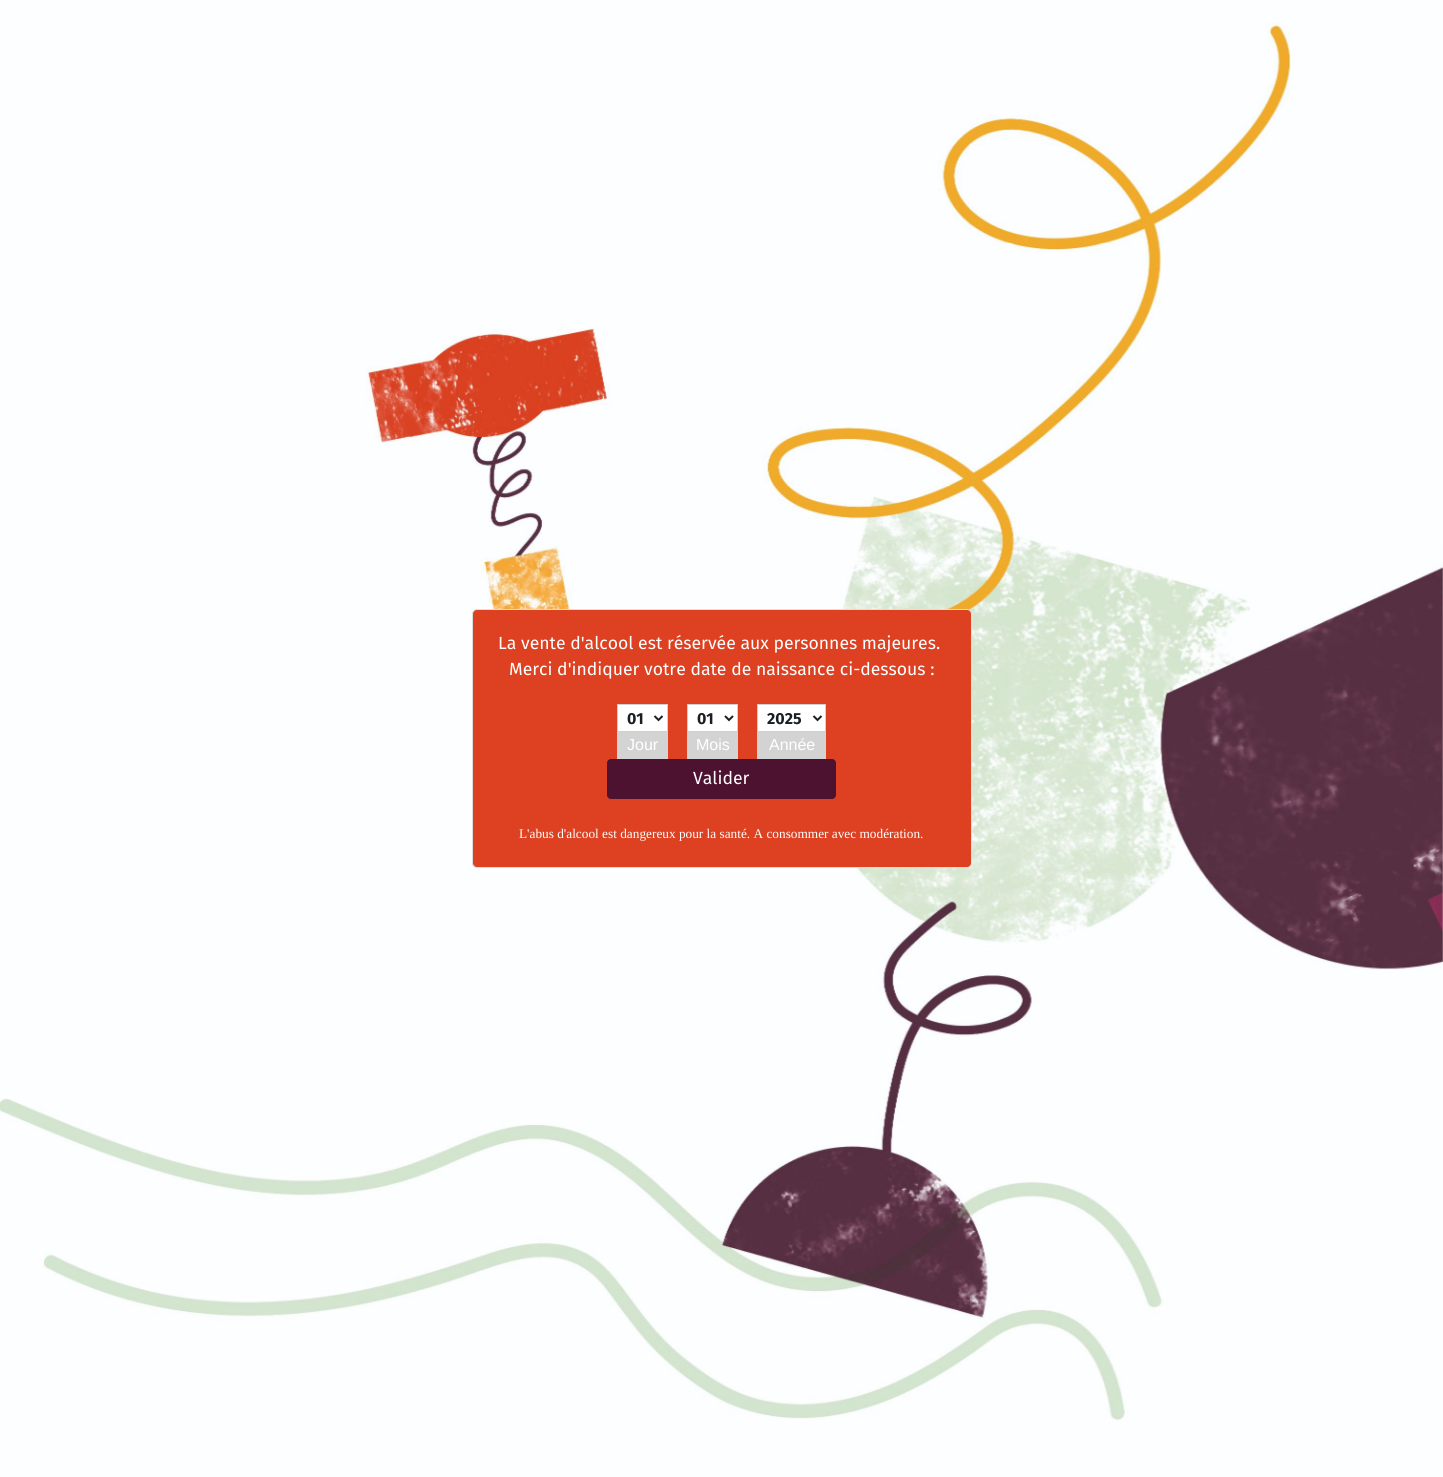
import math
import cairo


def use_color(cr, r, g, b):
  cr.set_source_rgb(r / 255, g / 255, b / 255)

def text(cr, x, y, s, family, size, color, bold=False, italic=False):
  cr.select_font_face(family, cairo.FONT_SLANT_ITALIC if italic else cairo.FONT_SLANT_NORMAL, cairo.FONT_WEIGHT_BOLD if bold else cairo.FONT_WEIGHT_NORMAL)
  cr.set_font_size(size)
  use_color(cr, *color)
  cr.move_to(x, y)
  cr.show_text(s)

def box(cr, x, y, w, h, *color):
  use_color(cr, *color)
  cr.rectangle(x, y, w, h)
  cr.fill()

def round_rect(cr, x, y, w, h, r):
  cr.new_sub_path()
  for i, (u, v) in enumerate([(x + w - r, y + h - r), (x + r, y + h - r), (x + r, y + r), (x + w - r, y + r)]):
    cr.arc(u, v, r, i * math.pi / 2, (i + 1) * math.pi / 2)
  cr.close_path()

def picture(cr, path, x, y, w, h):
  cr.save()
  cr.set_source_surface(cairo.ImageSurface.create_from_png(path), x, y)
  cr.rectangle(x, y, w, h)
  cr.fill()
  cr.restore()

def draw(cr):
  use_color(cr, 255, 255, 255)
  cr.paint()
  picture(cr, "img_01.png", 0, 0, 1443, 1477)
  use_color(cr, 221, 65, 33)
  round_rect(cr, 472.5, 609.5, 499, 258, 4.5)
  cr.fill_preserve()
  use_color(cr, 222, 222, 222)
  cr.set_line_width(1)
  cr.stroke()
  use_color(cr, 255, 255, 255)
  cr.rectangle(617.5, 704.5, 50, 27)
  cr.fill_preserve()
  use_color(cr, 208, 208, 208)
  cr.stroke()
  cr.new_path()
  cr.move_to(654.5, 716)
  cr.line_to(658.5, 720)
  cr.line_to(662.5, 716)
  use_color(cr, 26, 31, 38)
  cr.set_line_width(2)
  cr.stroke()
  box(cr, 617, 732, 51, 27, 211, 211, 211)
  use_color(cr, 255, 255, 255)
  cr.rectangle(687.5, 704.5, 50, 27)
  cr.fill_preserve()
  use_color(cr, 208, 208, 208)
  cr.set_line_width(1)
  cr.stroke()
  cr.new_path()
  cr.move_to(725, 716)
  cr.line_to(729, 720)
  cr.line_to(733, 716)
  use_color(cr, 26, 31, 38)
  cr.set_line_width(2)
  cr.stroke()
  box(cr, 687, 732, 51, 27, 211, 211, 211)
  use_color(cr, 255, 255, 255)
  cr.rectangle(757.5, 704.5, 68, 27)
  cr.fill_preserve()
  use_color(cr, 208, 208, 208)
  cr.set_line_width(1)
  cr.stroke()
  cr.new_path()
  cr.move_to(813.5, 716)
  cr.line_to(817.5, 720)
  cr.line_to(821.5, 716)
  use_color(cr, 26, 31, 38)
  cr.set_line_width(2)
  cr.stroke()
  box(cr, 757, 732, 69, 27, 211, 211, 211)
  use_color(cr, 76, 18, 48)
  round_rect(cr, 607.5, 759.5, 228, 39, 3.5)
  cr.fill_preserve()
  cr.set_line_width(1)
  cr.stroke()
  text(cr, 498, 649, "La vente d'alcool est réservée aux personnes majeures.", "Fira Sans", 17.6, (255, 255, 255))
  text(cr, 509, 675, "Merci d'indiquer votre date de naissance ci-dessous :", "Fira Sans", 17.6, (255, 255, 255))
  text(cr, 627, 724, "01", "Fira Sans", 16, (26, 31, 38), bold=True)
  text(cr, 627, 750, "Jour", "Liberation Sans", 16, (255, 255, 255))
  text(cr, 697, 724, "01", "Fira Sans", 16, (26, 31, 38), bold=True)
  text(cr, 696, 750, "Mois", "Liberation Sans", 16, (255, 255, 255))
  text(cr, 767, 724, "2025", "Fira Sans", 16, (26, 31, 38), bold=True)
  text(cr, 769, 750, "Année", "Liberation Sans", 16, (255, 255, 255))
  text(cr, 693, 784, "Valider", "Fira Sans", 17.6, (255, 255, 255))
  text(cr, 519, 838, "L'abus d'alcool est dangereux pour la santé. A consommer avec modération.", "Liberation Serif", 13.3, (255, 255, 255))


surface = cairo.ImageSurface(cairo.FORMAT_RGB24, 1443, 1477)
cr = cairo.Context(surface)
options = cairo.FontOptions()
options.set_hint_metrics(cairo.HINT_METRICS_OFF)
options.set_hint_style(cairo.HINT_STYLE_NONE)
cr.set_font_options(options)
cr.set_miter_limit(4)
draw(cr)
surface.write_to_png("out.png")
